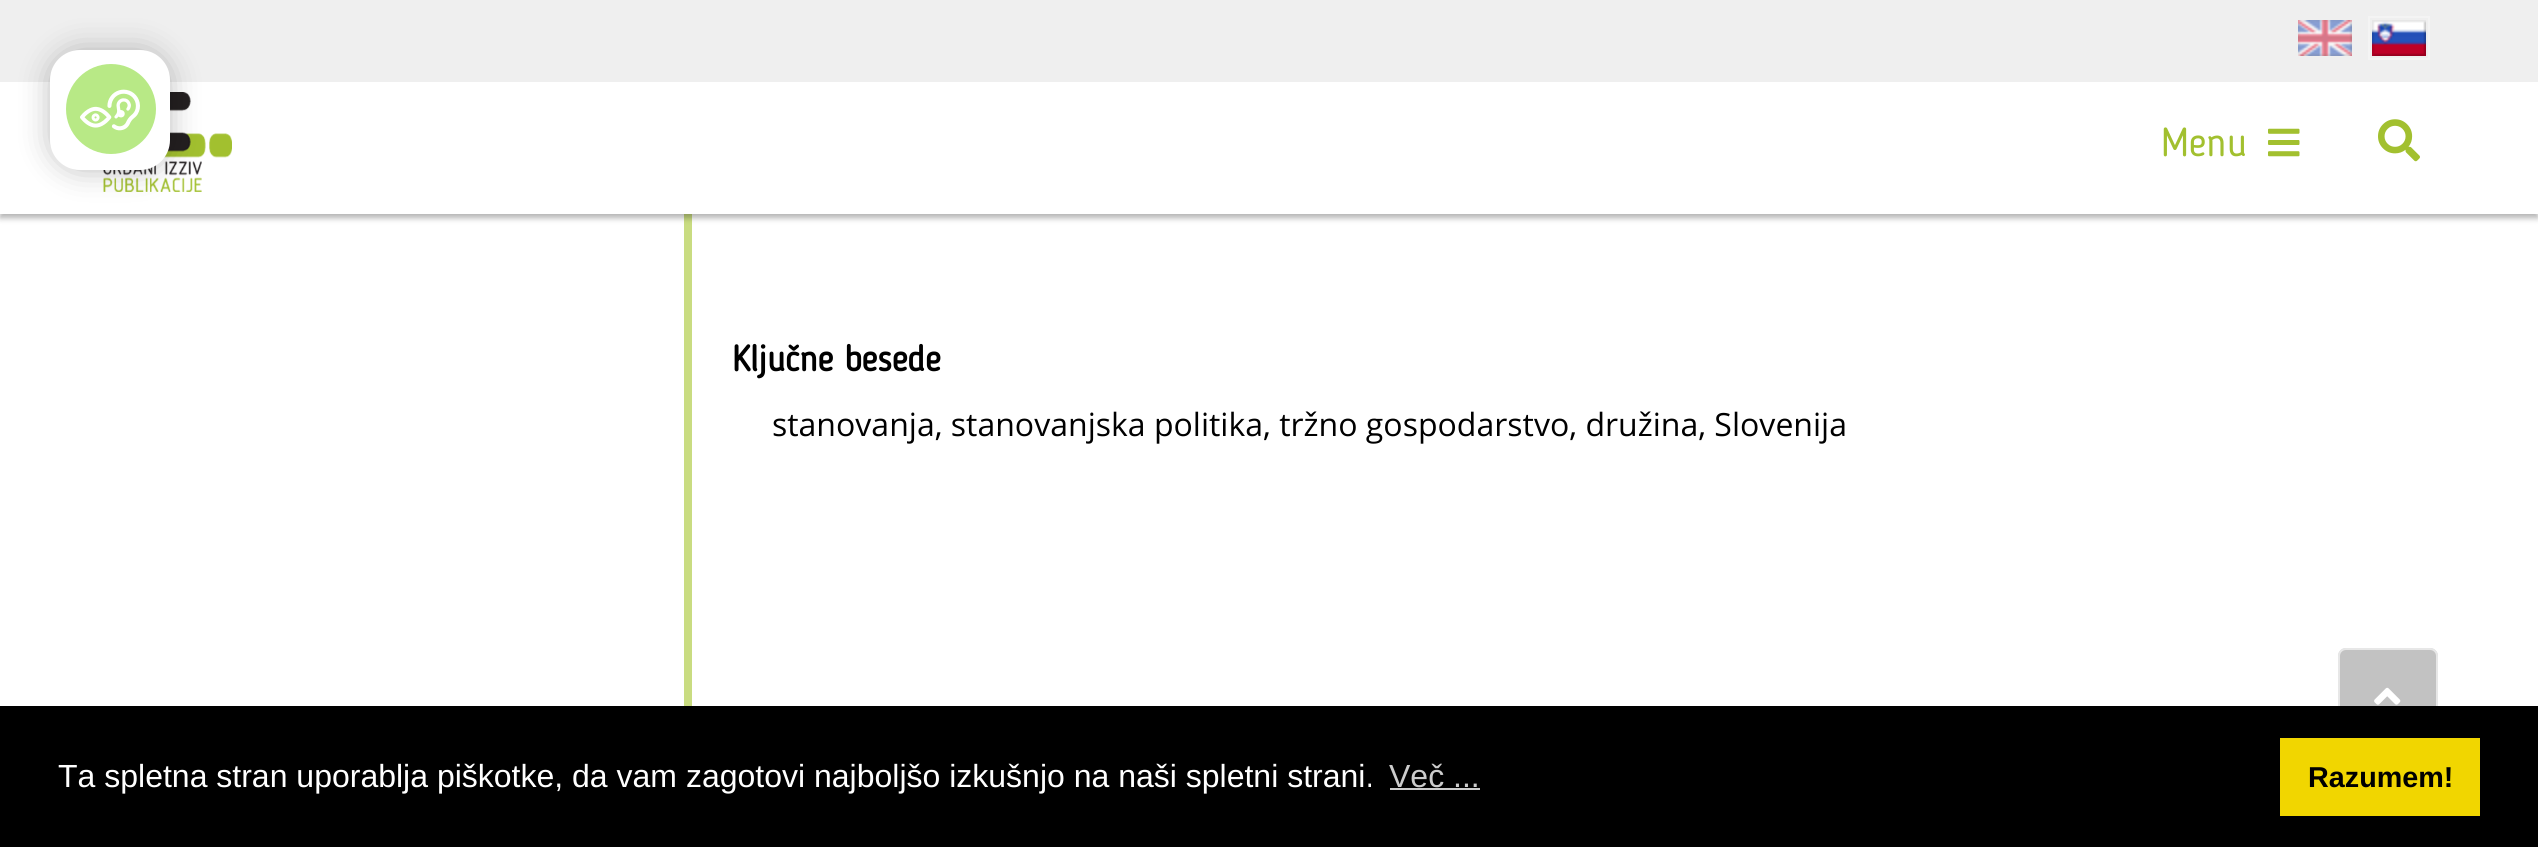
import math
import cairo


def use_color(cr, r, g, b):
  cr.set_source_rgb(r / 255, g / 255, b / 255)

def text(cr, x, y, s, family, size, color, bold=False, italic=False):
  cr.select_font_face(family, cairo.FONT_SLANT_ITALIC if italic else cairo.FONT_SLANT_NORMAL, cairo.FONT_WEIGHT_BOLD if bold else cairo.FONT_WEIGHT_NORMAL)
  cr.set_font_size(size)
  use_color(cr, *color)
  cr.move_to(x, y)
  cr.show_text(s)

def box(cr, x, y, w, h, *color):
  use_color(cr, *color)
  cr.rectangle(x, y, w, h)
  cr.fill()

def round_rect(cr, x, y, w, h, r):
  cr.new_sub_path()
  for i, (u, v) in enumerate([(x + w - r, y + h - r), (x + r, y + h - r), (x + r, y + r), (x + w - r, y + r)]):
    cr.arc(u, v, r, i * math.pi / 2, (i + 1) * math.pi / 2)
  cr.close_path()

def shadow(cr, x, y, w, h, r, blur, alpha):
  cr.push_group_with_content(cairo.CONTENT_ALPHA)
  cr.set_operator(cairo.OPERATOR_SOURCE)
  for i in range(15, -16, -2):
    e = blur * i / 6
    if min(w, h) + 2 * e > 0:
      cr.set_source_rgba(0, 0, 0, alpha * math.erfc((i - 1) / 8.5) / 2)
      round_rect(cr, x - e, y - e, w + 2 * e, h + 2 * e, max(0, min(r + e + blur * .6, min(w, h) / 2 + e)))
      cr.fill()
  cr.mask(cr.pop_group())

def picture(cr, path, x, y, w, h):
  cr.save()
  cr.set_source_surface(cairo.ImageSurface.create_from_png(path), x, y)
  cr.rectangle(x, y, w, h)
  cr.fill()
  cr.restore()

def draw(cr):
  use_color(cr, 255, 255, 255)
  cr.paint()
  box(cr, 684, 214, 8, 492, 201, 220, 129)
  use_color(cr, 0, 0, 0)
  shadow(cr, 0, 4, 2538, 214, 0, 3, 0.3)
  box(cr, 0, 82, 2538, 132, 255, 255, 255)
  box(cr, 0, 0, 2538, 82, 239, 239, 239)
  picture(cr, "img_04.png", 103, 92, 129, 100)
  use_color(cr, 0, 0, 0)
  shadow(cr, 50, 50, 120, 120, 30, 15, 0.26)
  use_color(cr, 255, 255, 255)
  round_rect(cr, 50, 50, 120, 120, 30)
  cr.fill()
  use_color(cr, 184, 233, 134)
  cr.arc(111, 109, 45, 0, 2 * math.pi)
  cr.fill()
  picture(cr, "img_01.png", 80, 89, 60, 42)
  picture(cr, "img_02.png", 2298, 20, 54, 36)
  cr.rectangle(2369, 17, 60, 42)
  use_color(cr, 244, 244, 244)
  cr.stroke()
  picture(cr, "img_03.png", 2372, 20, 54, 36)
  picture(cr, "img_05.png", 2268, 128, 32, 29)
  picture(cr, "img_06.png", 2378, 119, 42, 43)
  use_color(cr, 194, 194, 194)
  round_rect(cr, 2338, 648, 100, 100, 8)
  cr.fill()
  round_rect(cr, 2339, 649, 98, 98, 7)
  cr.set_source_rgba(1, 1, 1, 0.6)
  cr.stroke()
  picture(cr, "img_07.png", 2374, 687, 27, 18)
  box(cr, 0, 706, 2538, 141, 0, 0, 0)
  box(cr, 1390, 788, 90, 2, 204, 204, 204)
  box(cr, 2280, 738, 200, 78, 241, 214, 0)
  text(cr, 2161, 156, "Menu", "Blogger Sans", 40, (162, 192, 47))
  text(cr, 732, 371, "Ključne besede", "Blogger Sans", 36, (0, 0, 0), bold=True)
  text(cr, 772, 436, "stanovanja, stanovanjska politika, tržno gospodarstvo, družina, Slovenija", "Open Sans", 32, (0, 0, 0))
  text(cr, 58, 787, "Ta spletna stran uporablja piškotke, da vam zagotovi najboljšo izkušnjo na naši spletni strani.", "Liberation Sans", 32, (255, 255, 255))
  text(cr, 1389, 787, "Več ...", "Liberation Sans", 32, (204, 204, 204))
  text(cr, 2308, 787, "Razumem!", "Liberation Sans", 28.75, (0, 0, 0), bold=True)


surface = cairo.ImageSurface(cairo.FORMAT_RGB24, 2538, 847)
cr = cairo.Context(surface)
options = cairo.FontOptions()
options.set_hint_metrics(cairo.HINT_METRICS_OFF)
options.set_hint_style(cairo.HINT_STYLE_NONE)
cr.set_font_options(options)
cr.set_miter_limit(4)
draw(cr)
surface.write_to_png("out.png")
